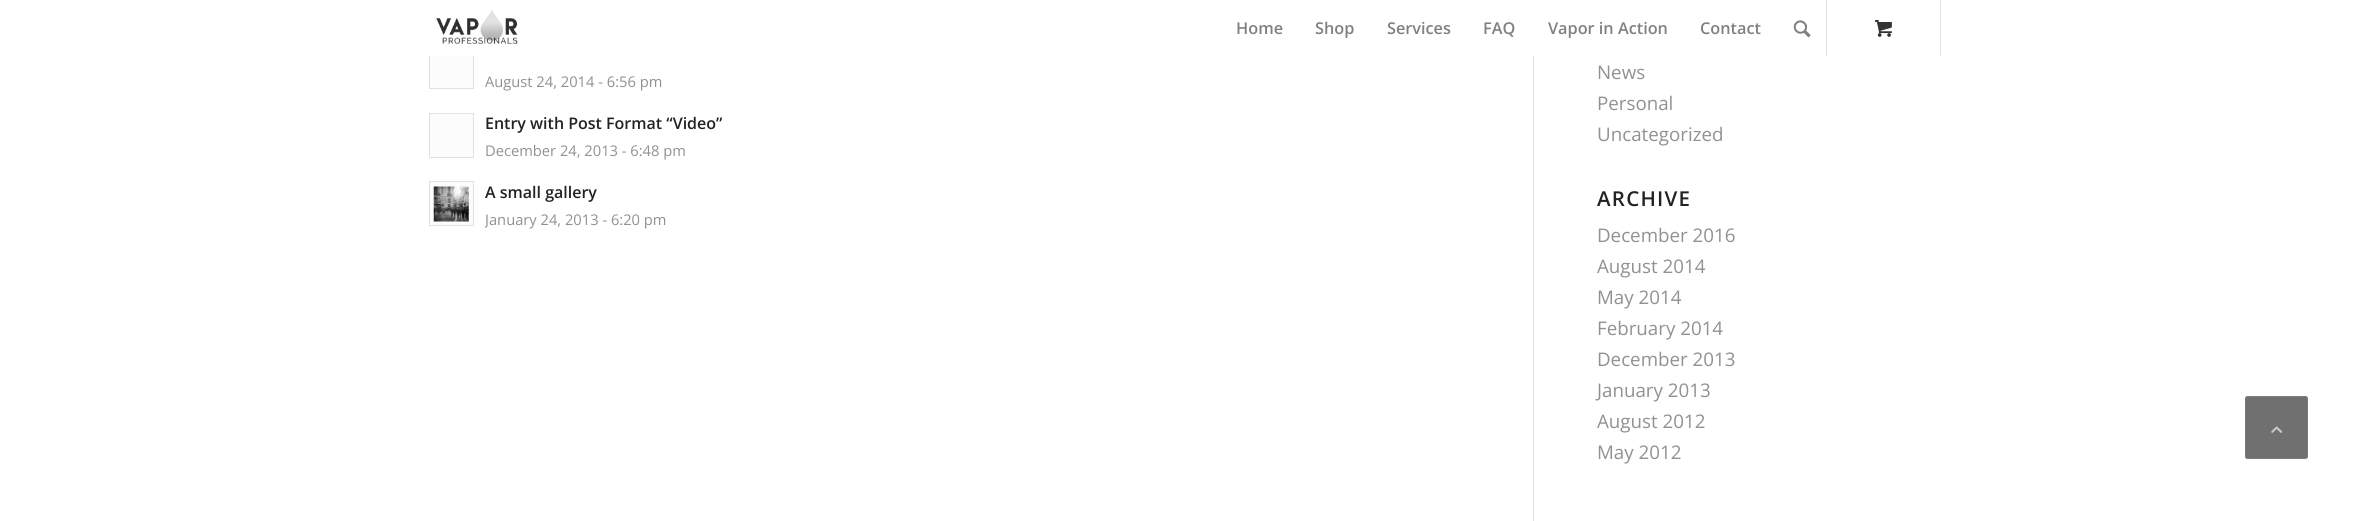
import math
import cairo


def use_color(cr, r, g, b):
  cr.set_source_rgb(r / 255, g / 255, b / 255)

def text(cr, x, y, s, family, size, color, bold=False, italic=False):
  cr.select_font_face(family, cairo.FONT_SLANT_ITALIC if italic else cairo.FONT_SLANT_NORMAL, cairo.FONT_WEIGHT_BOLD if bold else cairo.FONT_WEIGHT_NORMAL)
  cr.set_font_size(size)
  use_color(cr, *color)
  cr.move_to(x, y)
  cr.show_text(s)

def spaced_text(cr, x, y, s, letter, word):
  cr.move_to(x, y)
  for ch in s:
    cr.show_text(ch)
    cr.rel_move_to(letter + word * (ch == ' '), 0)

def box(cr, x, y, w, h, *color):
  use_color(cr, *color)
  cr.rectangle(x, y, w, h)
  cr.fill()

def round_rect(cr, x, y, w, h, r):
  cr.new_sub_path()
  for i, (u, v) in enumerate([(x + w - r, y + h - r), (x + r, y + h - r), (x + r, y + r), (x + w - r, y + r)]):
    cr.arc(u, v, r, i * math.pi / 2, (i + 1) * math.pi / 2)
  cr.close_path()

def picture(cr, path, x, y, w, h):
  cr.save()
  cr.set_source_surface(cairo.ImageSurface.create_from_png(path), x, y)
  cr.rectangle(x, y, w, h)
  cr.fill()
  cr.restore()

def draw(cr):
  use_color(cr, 255, 255, 255)
  cr.paint()
  picture(cr, "img_01.png", 436, 9, 82, 35)
  picture(cr, "img_02.png", 1793, 20, 18, 18)
  box(cr, 1940, 0, 1, 56, 225, 225, 225)
  box(cr, 1826, 0, 1, 56, 225, 225, 225)
  picture(cr, "img_03.png", 1875, 20, 17, 17)
  box(cr, 430, 56, 43, 32, 252, 252, 252)
  cr.rectangle(429.5, 44.5, 44, 44)
  use_color(cr, 225, 225, 225)
  cr.set_line_width(1)
  cr.stroke()
  box(cr, 429, 44, 45, 12, 255, 255, 255)
  use_color(cr, 252, 252, 252)
  cr.rectangle(429.5, 113.5, 44, 44)
  cr.fill_preserve()
  use_color(cr, 225, 225, 225)
  cr.stroke()
  use_color(cr, 252, 252, 252)
  cr.rectangle(429.5, 181.5, 44, 44)
  cr.fill_preserve()
  use_color(cr, 225, 225, 225)
  cr.stroke()
  picture(cr, "img_04.png", 433, 186, 36, 36)
  box(cr, 1533, 56, 1, 465, 225, 225, 225)
  use_color(cr, 112, 112, 112)
  round_rect(cr, 2245.5, 396.5, 62, 62, 2)
  cr.fill_preserve()
  use_color(cr, 124, 124, 124)
  cr.stroke()
  picture(cr, "img_05.png", 2271, 426, 12, 7)
  text(cr, 1236, 34, "Home", "Open Sans SemiBold", 16.25, (128, 128, 128))
  text(cr, 1315, 34, "Shop", "Open Sans SemiBold", 16.25, (128, 128, 128))
  text(cr, 1387, 34, "Services", "Open Sans SemiBold", 16.25, (128, 128, 128))
  text(cr, 1483, 34, "FAQ", "Open Sans SemiBold", 16.25, (128, 128, 128))
  text(cr, 1548, 34, "Vapor in Action", "Open Sans SemiBold", 16.25, (128, 128, 128))
  text(cr, 1700, 34, "Contact", "Open Sans SemiBold", 16.25, (128, 128, 128))
  text(cr, 485, 87, "August 24, 2014 - 6:56 pm", "Open Sans", 14.7, (145, 145, 145))
  text(cr, 485, 129, "Entry with Post Format “Video”", "Open Sans SemiBold", 16, (34, 34, 34))
  text(cr, 485, 156, "December 24, 2013 - 6:48 pm", "Open Sans", 14.7, (145, 145, 145))
  text(cr, 485, 198, "A small gallery", "Open Sans SemiBold", 16, (34, 34, 34))
  cr.save()
  cr.rectangle(485, 179, 985, 55)
  cr.clip()
  text(cr, 485, 225, "January 24, 2013 - 6:20 pm", "Open Sans", 14.7, (145, 145, 145))
  cr.restore()
  text(cr, 1597, 79, "News", "Open Sans", 18.75, (145, 145, 145))
  text(cr, 1597, 110, "Personal", "Open Sans", 18.75, (145, 145, 145))
  text(cr, 1597, 141, "Uncategorized", "Open Sans", 18.75, (145, 145, 145))
  cr.select_font_face("Open Sans SemiBold")
  cr.set_font_size(20.5)
  use_color(cr, 34, 34, 34)
  spaced_text(cr, 1597, 206, "ARCHIVE", 1.25, 0)
  text(cr, 1597, 242, "December 2016", "Open Sans", 18.75, (145, 145, 145))
  text(cr, 1597, 273, "August 2014", "Open Sans", 18.75, (145, 145, 145))
  text(cr, 1597, 304, "May 2014", "Open Sans", 18.75, (145, 145, 145))
  text(cr, 1597, 335, "February 2014", "Open Sans", 18.75, (145, 145, 145))
  text(cr, 1597, 366, "December 2013", "Open Sans", 18.75, (145, 145, 145))
  text(cr, 1597, 397, "January 2013", "Open Sans", 18.75, (145, 145, 145))
  text(cr, 1597, 428, "August 2012", "Open Sans", 18.75, (145, 145, 145))
  text(cr, 1597, 459, "May 2012", "Open Sans", 18.75, (145, 145, 145))


surface = cairo.ImageSurface(cairo.FORMAT_RGB24, 2369, 521)
cr = cairo.Context(surface)
options = cairo.FontOptions()
options.set_hint_metrics(cairo.HINT_METRICS_OFF)
options.set_hint_style(cairo.HINT_STYLE_NONE)
cr.set_font_options(options)
cr.set_miter_limit(4)
draw(cr)
surface.write_to_png("out.png")
